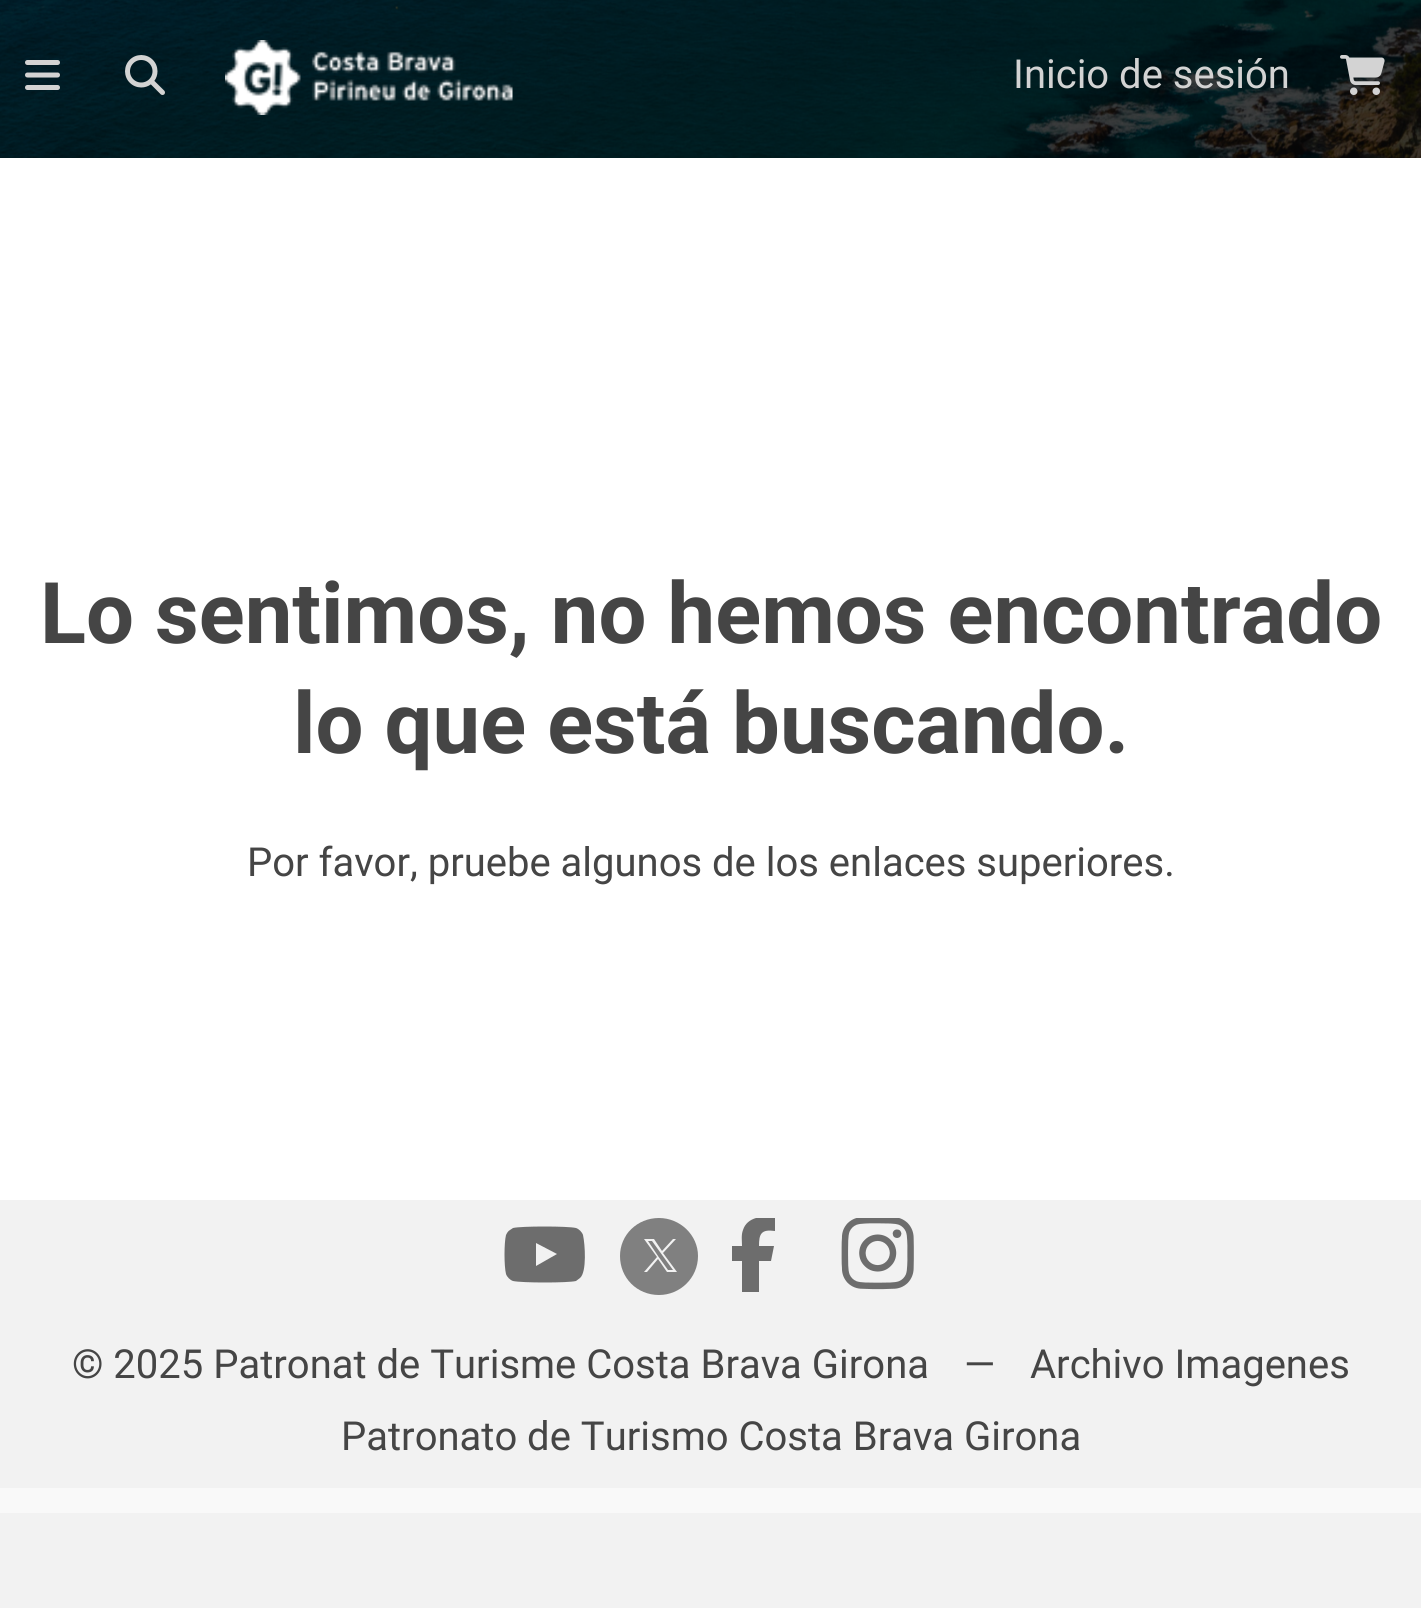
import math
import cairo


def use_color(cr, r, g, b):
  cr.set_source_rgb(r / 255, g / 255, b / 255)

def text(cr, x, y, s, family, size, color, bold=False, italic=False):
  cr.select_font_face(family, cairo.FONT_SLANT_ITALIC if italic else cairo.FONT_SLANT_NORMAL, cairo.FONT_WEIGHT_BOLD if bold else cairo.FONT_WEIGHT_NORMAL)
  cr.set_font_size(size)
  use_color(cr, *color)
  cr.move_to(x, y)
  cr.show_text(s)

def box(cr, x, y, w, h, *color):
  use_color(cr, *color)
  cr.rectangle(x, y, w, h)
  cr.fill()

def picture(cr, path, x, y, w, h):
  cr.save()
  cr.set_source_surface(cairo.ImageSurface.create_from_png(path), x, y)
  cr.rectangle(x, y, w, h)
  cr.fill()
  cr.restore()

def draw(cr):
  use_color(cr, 242, 242, 242)
  cr.paint()
  picture(cr, "img_01.png", 0, 0, 1421, 158)
  picture(cr, "img_02.png", 25, 60, 35, 30)
  picture(cr, "img_03.png", 125, 55, 40, 40)
  picture(cr, "img_04.png", 225, 40, 288, 75)
  picture(cr, "img_05.png", 1340, 55, 45, 40)
  box(cr, 0, 158, 1421, 1042, 255, 255, 255)
  box(cr, 0, 1488, 1421, 25, 249, 249, 249)
  use_color(cr, 109, 109, 109)
  cr.new_path()
  cr.move_to(583, 1235)
  cr.curve_to(582, 1232, 579, 1229, 576, 1228)
  cr.curve_to(568, 1226, 521, 1226, 513, 1228)
  cr.line_to(510, 1230)
  cr.curve_to(508, 1231, 507, 1233, 506, 1235)
  cr.curve_to(504, 1243, 504, 1266, 506, 1274)
  cr.curve_to(507, 1277, 510, 1280, 513, 1281)
  cr.curve_to(522, 1283, 568, 1283, 576, 1281)
  cr.line_to(580, 1278)
  cr.curve_to(587, 1272, 585, 1244, 583, 1235)
  cr.close_path()
  cr.move_to(536, 1266)
  cr.line_to(536, 1243)
  cr.line_to(536, 1266)
  cr.line_to(536, 1243)
  cr.line_to(557, 1254)
  cr.close_path()
  cr.fill()
  use_color(cr, 128, 128, 128)
  cr.set_fill_rule(cairo.FILL_RULE_EVEN_ODD)
  cr.new_path()
  cr.move_to(659, 1295)
  cr.curve_to(680, 1295, 698, 1278, 698, 1256)
  cr.curve_to(698, 1235, 680, 1218, 659, 1218)
  cr.curve_to(637, 1218, 620, 1235, 620, 1256)
  cr.curve_to(620, 1278, 637, 1295, 659, 1295)
  cr.close_path()
  cr.move_to(676, 1239)
  cr.line_to(663, 1253)
  cr.line_to(677, 1272)
  cr.line_to(667, 1272)
  cr.line_to(658, 1259)
  cr.line_to(647, 1272)
  cr.line_to(644, 1272)
  cr.line_to(657, 1257)
  cr.line_to(644, 1239)
  cr.line_to(654, 1239)
  cr.line_to(662, 1251)
  cr.line_to(673, 1239)
  cr.close_path()
  cr.move_to(658, 1256)
  cr.line_to(668, 1270)
  cr.line_to(673, 1270)
  cr.line_to(652, 1241)
  cr.line_to(648, 1241)
  cr.close_path()
  cr.fill()
  cr.save()
  cr.set_fill_rule(cairo.FILL_RULE_WINDING)
  cr.rectangle(25, 1218, 1373, 100)
  cr.clip()
  use_color(cr, 109, 109, 109)
  cr.new_path()
  cr.move_to(742, 1261)
  cr.line_to(742, 1292)
  cr.line_to(742, 1261)
  cr.line_to(742, 1292)
  cr.line_to(759, 1292)
  cr.line_to(759, 1261)
  cr.line_to(771, 1261)
  cr.line_to(774, 1246)
  cr.line_to(759, 1246)
  cr.curve_to(759, 1234, 761, 1229, 775, 1231)
  cr.line_to(775, 1218)
  cr.curve_to(763, 1215, 747, 1217, 743, 1230)
  cr.curve_to(741, 1235, 742, 1241, 742, 1246)
  cr.line_to(732, 1246)
  cr.line_to(732, 1261)
  cr.close_path()
  cr.fill()
  cr.restore()
  picture(cr, "img_06.png", 841, 1218, 73, 72)
  text(cr, 1013, 88, "Inicio de sesión", "Roboto", 40, (211, 211, 211))
  text(cr, 40, 643, "Lo sentimos, no hemos encontrado", "Roboto", 85, (69, 69, 69), bold=True)
  text(cr, 293, 753, "lo que está buscando.", "Roboto", 85, (69, 69, 69), bold=True)
  text(cr, 247, 876, "Por favor, pruebe algunos de los enlaces superiores.", "Roboto", 40, (69, 69, 69))
  text(cr, 72, 1378, "© 2025 Patronat de Turisme Costa Brava Girona", "Roboto", 40, (69, 69, 69))
  text(cr, 964, 1378, "—", "Roboto", 40, (69, 69, 69))
  text(cr, 1030, 1378, "Archivo Imagenes", "Roboto", 40, (69, 69, 69))
  text(cr, 341, 1450, "Patronato de Turismo Costa Brava Girona", "Roboto", 40, (69, 69, 69))


surface = cairo.ImageSurface(cairo.FORMAT_RGB24, 1421, 1608)
cr = cairo.Context(surface)
options = cairo.FontOptions()
options.set_hint_metrics(cairo.HINT_METRICS_OFF)
options.set_hint_style(cairo.HINT_STYLE_NONE)
cr.set_font_options(options)
cr.set_miter_limit(4)
draw(cr)
surface.write_to_png("out.png")
